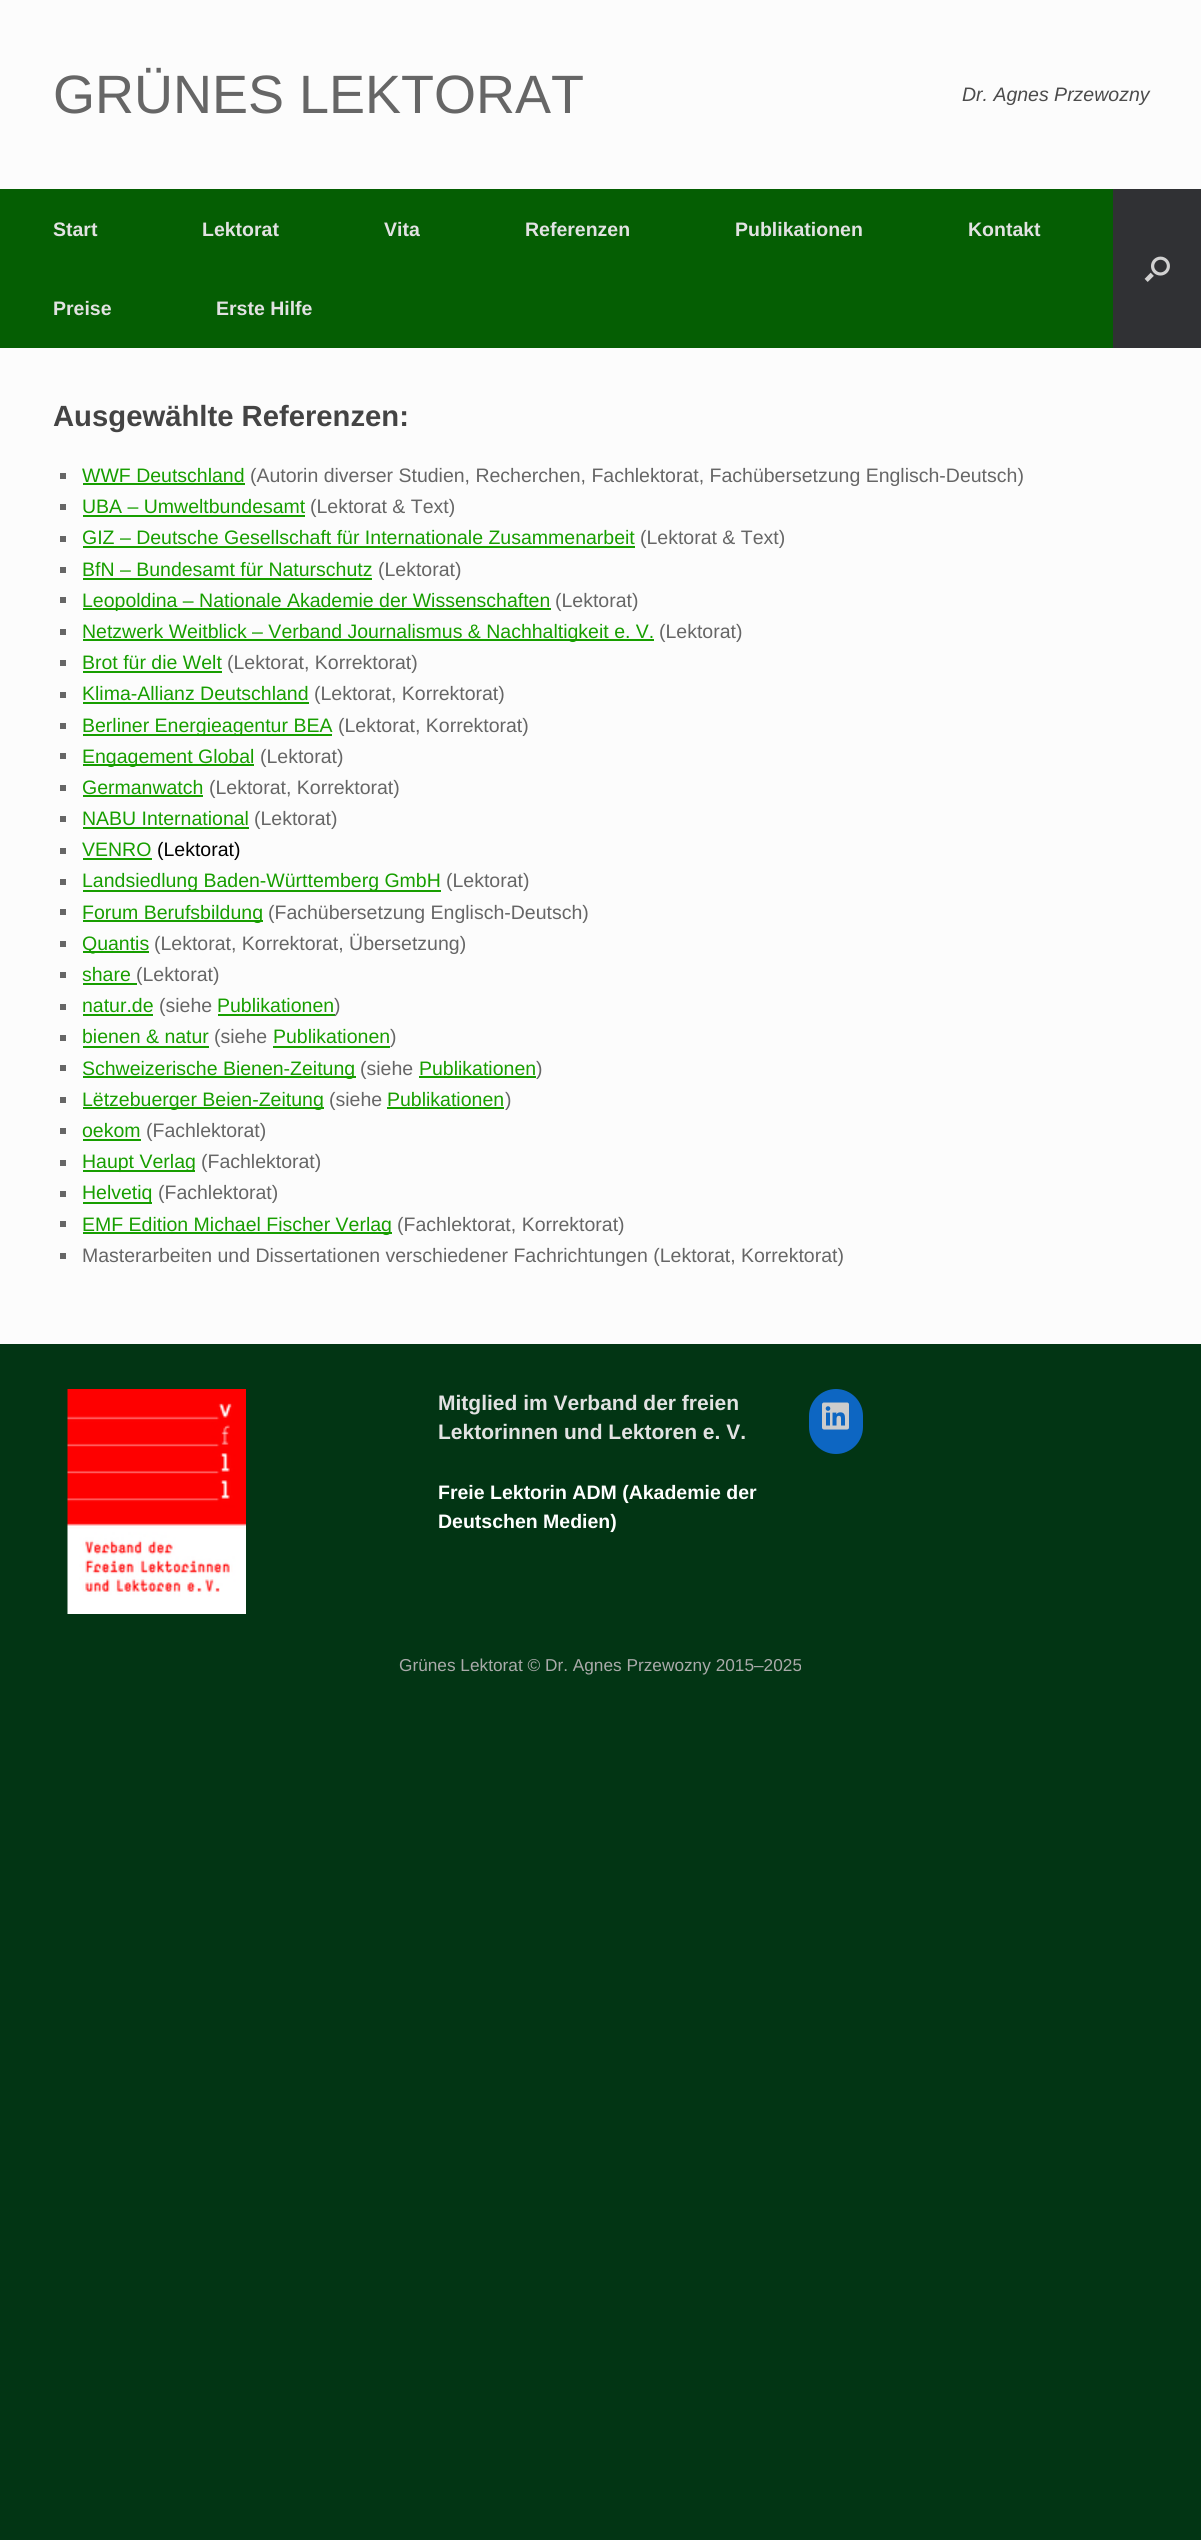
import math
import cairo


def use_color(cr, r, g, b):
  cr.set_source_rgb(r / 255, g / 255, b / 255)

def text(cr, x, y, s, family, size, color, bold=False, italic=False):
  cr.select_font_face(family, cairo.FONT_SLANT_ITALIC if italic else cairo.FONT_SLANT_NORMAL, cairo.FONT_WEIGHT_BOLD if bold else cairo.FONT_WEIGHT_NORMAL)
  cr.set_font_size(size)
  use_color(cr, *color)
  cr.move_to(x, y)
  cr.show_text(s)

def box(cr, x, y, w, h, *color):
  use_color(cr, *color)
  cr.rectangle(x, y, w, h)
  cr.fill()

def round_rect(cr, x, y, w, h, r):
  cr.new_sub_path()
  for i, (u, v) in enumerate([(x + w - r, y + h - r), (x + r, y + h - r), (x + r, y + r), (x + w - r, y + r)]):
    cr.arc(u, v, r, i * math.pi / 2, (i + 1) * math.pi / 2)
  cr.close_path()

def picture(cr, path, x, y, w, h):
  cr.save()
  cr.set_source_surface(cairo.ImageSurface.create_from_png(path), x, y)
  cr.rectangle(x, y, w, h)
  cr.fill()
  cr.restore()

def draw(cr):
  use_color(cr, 2, 53, 20)
  cr.paint()
  box(cr, 0, 0, 1201, 189, 252, 252, 252)
  box(cr, 0, 189, 1113, 159, 5, 94, 3)
  box(cr, 1113, 189, 88, 159, 48, 49, 52)
  picture(cr, "img_01.png", 1144, 256, 26, 26)
  box(cr, 0, 348, 1201, 996, 252, 252, 252)
  box(cr, 60, 473, 6, 6, 102, 102, 102)
  box(cr, 83, 483, 162, 2, 23, 158, 0)
  box(cr, 60, 504, 6, 6, 102, 102, 102)
  box(cr, 83, 515, 222, 2, 23, 158, 0)
  box(cr, 60, 536, 6, 6, 102, 102, 102)
  box(cr, 83, 546, 552, 2, 23, 158, 0)
  box(cr, 60, 567, 6, 6, 102, 102, 102)
  box(cr, 83, 578, 289, 2, 23, 158, 0)
  box(cr, 60, 597, 6, 6, 102, 102, 102)
  box(cr, 83, 608, 468, 2, 23, 158, 0)
  box(cr, 60, 629, 6, 6, 102, 102, 102)
  box(cr, 83, 639, 571, 2, 23, 158, 0)
  box(cr, 60, 660, 6, 6, 102, 102, 102)
  box(cr, 83, 671, 139, 2, 23, 158, 0)
  box(cr, 60, 692, 6, 6, 102, 102, 102)
  box(cr, 83, 702, 226, 2, 23, 158, 0)
  box(cr, 60, 723, 6, 6, 102, 102, 102)
  box(cr, 83, 734, 249, 2, 23, 158, 0)
  box(cr, 60, 753, 6, 6, 102, 102, 102)
  box(cr, 83, 764, 171, 2, 23, 158, 0)
  box(cr, 60, 785, 6, 6, 102, 102, 102)
  box(cr, 83, 795, 120, 2, 23, 158, 0)
  box(cr, 60, 816, 6, 6, 102, 102, 102)
  box(cr, 83, 827, 166, 2, 23, 158, 0)
  box(cr, 60, 848, 6, 6, 102, 102, 102)
  box(cr, 83, 858, 69, 2, 23, 158, 0)
  box(cr, 60, 879, 6, 6, 102, 102, 102)
  box(cr, 83, 890, 358, 2, 23, 158, 0)
  box(cr, 60, 909, 6, 6, 102, 102, 102)
  box(cr, 83, 920, 180, 2, 23, 158, 0)
  box(cr, 60, 941, 6, 6, 102, 102, 102)
  box(cr, 83, 951, 66, 2, 23, 158, 0)
  box(cr, 60, 972, 6, 6, 102, 102, 102)
  box(cr, 83, 983, 54, 2, 23, 158, 0)
  box(cr, 60, 1004, 6, 6, 102, 102, 102)
  box(cr, 83, 1014, 70, 2, 23, 158, 0)
  box(cr, 218, 1014, 117, 2, 23, 158, 0)
  box(cr, 60, 1035, 6, 6, 102, 102, 102)
  box(cr, 83, 1046, 126, 2, 23, 158, 0)
  box(cr, 273, 1046, 117, 2, 23, 158, 0)
  box(cr, 60, 1065, 6, 6, 102, 102, 102)
  box(cr, 83, 1076, 273, 2, 23, 158, 0)
  box(cr, 419, 1076, 117, 2, 23, 158, 0)
  box(cr, 60, 1097, 6, 6, 102, 102, 102)
  box(cr, 83, 1107, 241, 2, 23, 158, 0)
  box(cr, 387, 1107, 117, 2, 23, 158, 0)
  box(cr, 60, 1128, 6, 6, 102, 102, 102)
  box(cr, 83, 1139, 58, 2, 23, 158, 0)
  box(cr, 60, 1160, 6, 6, 102, 102, 102)
  box(cr, 83, 1170, 112, 2, 23, 158, 0)
  box(cr, 60, 1191, 6, 6, 102, 102, 102)
  box(cr, 83, 1202, 69, 2, 23, 158, 0)
  box(cr, 60, 1221, 6, 6, 102, 102, 102)
  box(cr, 83, 1232, 309, 2, 23, 158, 0)
  box(cr, 60, 1253, 6, 6, 102, 102, 102)
  picture(cr, "img_02.png", 67, 1389, 179, 225)
  use_color(cr, 13, 102, 194)
  round_rect(cr, 809, 1389, 54, 65, 27)
  cr.fill()
  picture(cr, "img_03.png", 822, 1402, 27, 28)
  text(cr, 53, 113, "GRÜNES LEKTORAT", "Liberation Sans", 54, (102, 102, 102))
  text(cr, 962, 101, "Dr. Agnes Przewozny", "Liberation Sans", 19.5, (75, 75, 75), italic=True)
  text(cr, 53, 236, "Start", "Liberation Sans", 19.5, (226, 226, 226), bold=True)
  text(cr, 202, 236, "Lektorat", "Liberation Sans", 19.5, (226, 226, 226), bold=True)
  text(cr, 384, 236, "Vita", "Liberation Sans", 19.5, (226, 226, 226), bold=True)
  text(cr, 525, 236, "Referenzen", "Liberation Sans", 19.5, (226, 226, 226), bold=True)
  text(cr, 735, 236, "Publikationen", "Liberation Sans", 19.5, (226, 226, 226), bold=True)
  text(cr, 968, 236, "Kontakt", "Liberation Sans", 19.5, (226, 226, 226), bold=True)
  text(cr, 53, 315, "Preise", "Liberation Sans", 19.5, (226, 226, 226), bold=True)
  text(cr, 216, 315, "Erste Hilfe", "Liberation Sans", 19.5, (226, 226, 226), bold=True)
  text(cr, 53, 426, "Ausgewählte Referenzen:", "Liberation Sans", 29.25, (68, 68, 68), bold=True)
  text(cr, 82, 482, "WWF Deutschland", "Liberation Sans", 19.5, (23, 158, 0))
  text(cr, 250, 482, "(Autorin diverser Studien, Recherchen, Fachlektorat, Fachübersetzung Englisch-Deutsch)", "Liberation Sans", 19.5, (102, 102, 102))
  text(cr, 82, 513, "UBA – Umweltbundesamt", "Liberation Sans", 19.5, (23, 158, 0))
  text(cr, 310, 513, "(Lektorat & Text)", "Liberation Sans", 19.5, (102, 102, 102))
  text(cr, 82, 544, "GIZ – Deutsche Gesellschaft für Internationale Zusammenarbeit", "Liberation Sans", 19.5, (23, 158, 0))
  text(cr, 640, 544, "(Lektorat & Text)", "Liberation Sans", 19.5, (102, 102, 102))
  text(cr, 82, 576, "BfN – Bundesamt für Naturschutz", "Liberation Sans", 19.5, (23, 158, 0))
  text(cr, 378, 576, "(Lektorat)", "Liberation Sans", 19.5, (102, 102, 102))
  text(cr, 82, 607, "Leopoldina – Nationale Akademie der Wissenschaften", "Liberation Sans", 19.5, (23, 158, 0))
  text(cr, 555, 607, "(Lektorat)", "Liberation Sans", 19.5, (102, 102, 102))
  text(cr, 82, 638, "Netzwerk Weitblick – Verband Journalismus & Nachhaltigkeit e. V.", "Liberation Sans", 19.5, (23, 158, 0))
  text(cr, 659, 638, "(Lektorat)", "Liberation Sans", 19.5, (102, 102, 102))
  text(cr, 82, 669, "Brot für die Welt", "Liberation Sans", 19.5, (23, 158, 0))
  text(cr, 227, 669, "(Lektorat, Korrektorat)", "Liberation Sans", 19.5, (102, 102, 102))
  text(cr, 82, 700, "Klima-Allianz Deutschland", "Liberation Sans", 19.5, (23, 158, 0))
  text(cr, 314, 700, "(Lektorat, Korrektorat)", "Liberation Sans", 19.5, (102, 102, 102))
  text(cr, 82, 732, "Berliner Energieagentur BEA", "Liberation Sans", 19.5, (23, 158, 0))
  text(cr, 338, 732, "(Lektorat, Korrektorat)", "Liberation Sans", 19.5, (102, 102, 102))
  text(cr, 82, 763, "Engagement Global", "Liberation Sans", 19.5, (23, 158, 0))
  text(cr, 260, 763, "(Lektorat)", "Liberation Sans", 19.5, (102, 102, 102))
  text(cr, 82, 794, "Germanwatch", "Liberation Sans", 19.5, (23, 158, 0))
  text(cr, 209, 794, "(Lektorat, Korrektorat)", "Liberation Sans", 19.5, (102, 102, 102))
  text(cr, 82, 825, "NABU International", "Liberation Sans", 19.5, (23, 158, 0))
  text(cr, 254, 825, "(Lektorat)", "Liberation Sans", 19.5, (102, 102, 102))
  text(cr, 82, 856, "VENRO", "Liberation Sans", 19.5, (23, 158, 0))
  text(cr, 157, 856, "(Lektorat)", "Liberation Sans", 19.5, (0, 0, 0))
  text(cr, 82, 887, "Landsiedlung Baden-Württemberg GmbH", "Liberation Sans", 19.5, (23, 158, 0))
  text(cr, 446, 887, "(Lektorat)", "Liberation Sans", 19.5, (102, 102, 102))
  text(cr, 82, 919, "Forum Berufsbildung", "Liberation Sans", 19.5, (23, 158, 0))
  text(cr, 268, 919, "(Fachübersetzung Englisch-Deutsch)", "Liberation Sans", 19.5, (102, 102, 102))
  text(cr, 82, 950, "Quantis", "Liberation Sans", 19.5, (23, 158, 0))
  text(cr, 154, 950, "(Lektorat, Korrektorat, Übersetzung)", "Liberation Sans", 19.5, (102, 102, 102))
  text(cr, 82, 981, "share", "Liberation Sans", 19.5, (23, 158, 0))
  text(cr, 136, 981, "(Lektorat)", "Liberation Sans", 19.5, (102, 102, 102))
  text(cr, 82, 1012, "natur.de", "Liberation Sans", 19.5, (23, 158, 0))
  text(cr, 159, 1012, "(siehe", "Liberation Sans", 19.5, (102, 102, 102))
  text(cr, 217, 1012, "Publikationen", "Liberation Sans", 19.5, (23, 158, 0))
  text(cr, 334, 1012, ")", "Liberation Sans", 19.5, (102, 102, 102))
  text(cr, 82, 1043, "bienen & natur", "Liberation Sans", 19.5, (23, 158, 0))
  text(cr, 214, 1043, "(siehe", "Liberation Sans", 19.5, (102, 102, 102))
  text(cr, 273, 1043, "Publikationen", "Liberation Sans", 19.5, (23, 158, 0))
  text(cr, 390, 1043, ")", "Liberation Sans", 19.5, (102, 102, 102))
  text(cr, 82, 1075, "Schweizerische Bienen-Zeitung", "Liberation Sans", 19.5, (23, 158, 0))
  text(cr, 360, 1075, "(siehe", "Liberation Sans", 19.5, (102, 102, 102))
  text(cr, 419, 1075, "Publikationen", "Liberation Sans", 19.5, (23, 158, 0))
  text(cr, 536, 1075, ")", "Liberation Sans", 19.5, (102, 102, 102))
  text(cr, 82, 1106, "Lëtzebuerger Beien-Zeitung", "Liberation Sans", 19.5, (23, 158, 0))
  text(cr, 329, 1106, "(siehe", "Liberation Sans", 19.5, (102, 102, 102))
  text(cr, 387, 1106, "Publikationen", "Liberation Sans", 19.5, (23, 158, 0))
  text(cr, 505, 1106, ")", "Liberation Sans", 19.5, (102, 102, 102))
  text(cr, 82, 1137, "oekom", "Liberation Sans", 19.5, (23, 158, 0))
  text(cr, 146, 1137, "(Fachlektorat)", "Liberation Sans", 19.5, (102, 102, 102))
  text(cr, 82, 1168, "Haupt Verlag", "Liberation Sans", 19.5, (23, 158, 0))
  text(cr, 201, 1168, "(Fachlektorat)", "Liberation Sans", 19.5, (102, 102, 102))
  text(cr, 82, 1199, "Helvetiq", "Liberation Sans", 19.5, (23, 158, 0))
  text(cr, 158, 1199, "(Fachlektorat)", "Liberation Sans", 19.5, (102, 102, 102))
  text(cr, 82, 1231, "EMF Edition Michael Fischer Verlag", "Liberation Sans", 19.5, (23, 158, 0))
  text(cr, 397, 1231, "(Fachlektorat, Korrektorat)", "Liberation Sans", 19.5, (102, 102, 102))
  text(cr, 82, 1262, "Masterarbeiten und Dissertationen verschiedener Fachrichtungen (Lektorat, Korrektorat)", "Liberation Sans", 19.5, (102, 102, 102))
  text(cr, 438, 1410, "Mitglied im Verband der freien", "Liberation Sans", 21, (226, 226, 226), bold=True)
  text(cr, 438, 1439, "Lektorinnen und Lektoren e. V.", "Liberation Sans", 21, (226, 226, 226), bold=True)
  text(cr, 438, 1499, "Freie Lektorin ADM (Akademie der", "Liberation Sans", 19.5, (255, 255, 255), bold=True)
  text(cr, 438, 1528, "Deutschen Medien)", "Liberation Sans", 19.5, (255, 255, 255), bold=True)
  text(cr, 399, 1671, "Grünes Lektorat © Dr. Agnes Przewozny 2015–2025", "Liberation Sans", 17.25, (170, 170, 170))


surface = cairo.ImageSurface(cairo.FORMAT_RGB24, 1201, 2540)
cr = cairo.Context(surface)
options = cairo.FontOptions()
options.set_hint_metrics(cairo.HINT_METRICS_OFF)
options.set_hint_style(cairo.HINT_STYLE_NONE)
cr.set_font_options(options)
cr.set_miter_limit(4)
draw(cr)
surface.write_to_png("out.png")
